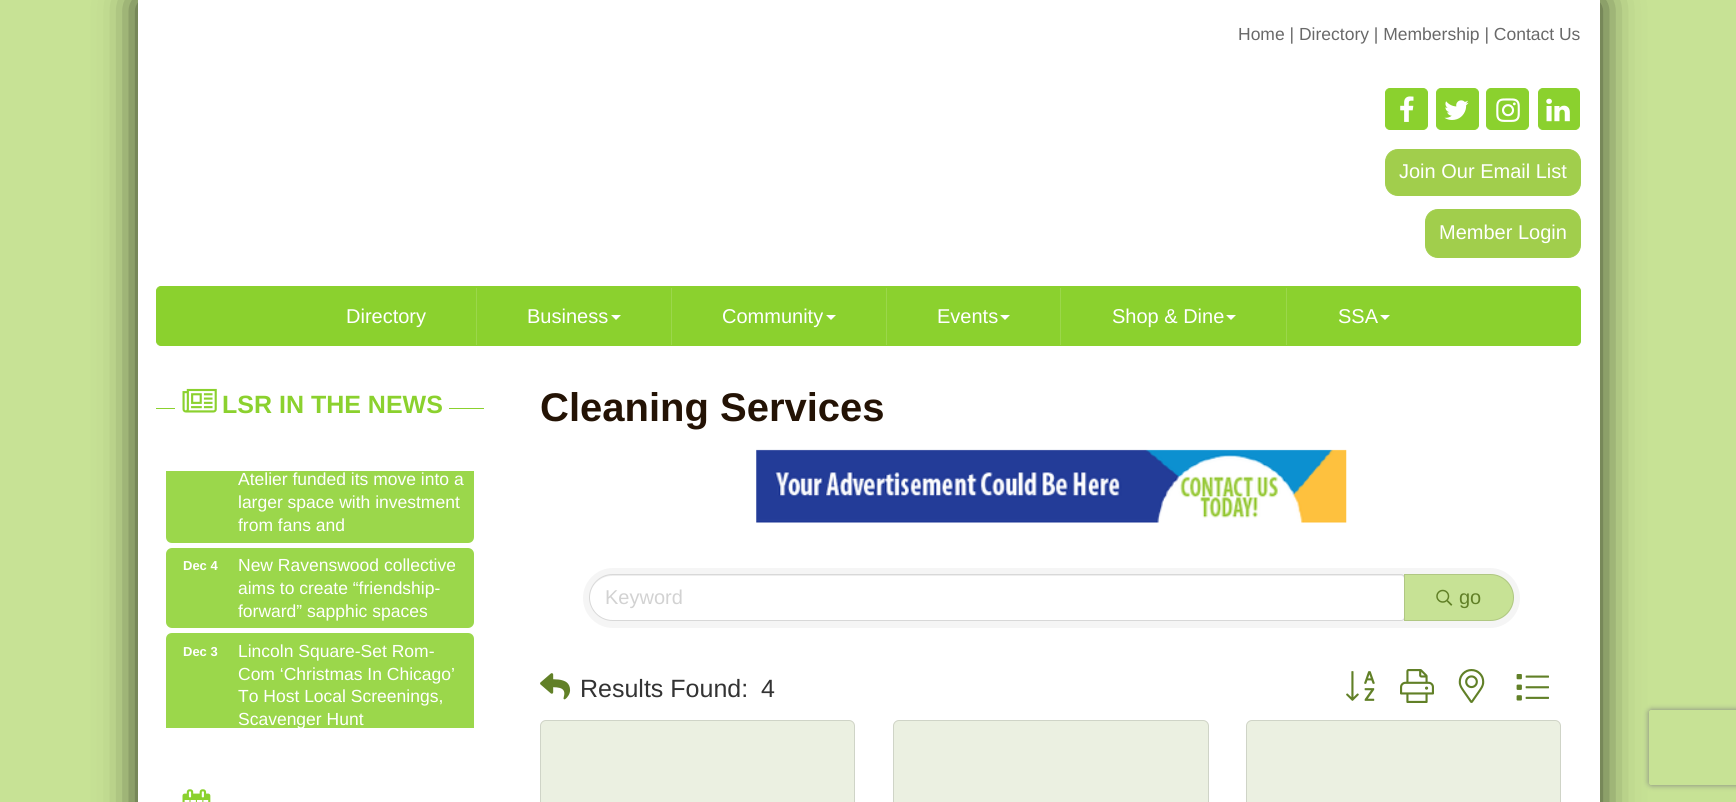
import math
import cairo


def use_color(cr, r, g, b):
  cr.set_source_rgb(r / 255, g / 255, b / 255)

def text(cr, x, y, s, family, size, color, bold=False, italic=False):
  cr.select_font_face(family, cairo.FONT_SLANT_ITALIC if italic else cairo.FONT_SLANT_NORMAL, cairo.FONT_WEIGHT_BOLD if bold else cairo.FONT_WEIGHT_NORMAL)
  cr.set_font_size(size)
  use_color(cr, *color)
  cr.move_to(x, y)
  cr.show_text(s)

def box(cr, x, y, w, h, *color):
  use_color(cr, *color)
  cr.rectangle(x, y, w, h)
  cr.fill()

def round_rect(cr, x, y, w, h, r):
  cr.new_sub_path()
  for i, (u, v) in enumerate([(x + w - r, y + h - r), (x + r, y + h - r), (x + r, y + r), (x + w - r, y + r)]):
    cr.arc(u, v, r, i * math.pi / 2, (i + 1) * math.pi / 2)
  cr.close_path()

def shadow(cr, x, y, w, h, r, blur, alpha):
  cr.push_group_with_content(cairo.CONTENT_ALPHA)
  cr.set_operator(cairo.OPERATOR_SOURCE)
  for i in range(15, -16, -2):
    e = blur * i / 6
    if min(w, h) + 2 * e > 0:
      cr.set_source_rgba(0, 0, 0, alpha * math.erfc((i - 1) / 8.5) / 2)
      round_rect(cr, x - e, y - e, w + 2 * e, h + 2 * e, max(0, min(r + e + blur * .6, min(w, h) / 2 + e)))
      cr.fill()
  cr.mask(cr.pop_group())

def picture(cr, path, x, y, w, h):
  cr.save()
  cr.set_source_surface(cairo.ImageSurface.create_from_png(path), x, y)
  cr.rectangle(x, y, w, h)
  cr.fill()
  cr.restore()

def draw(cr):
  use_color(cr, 199, 226, 149)
  cr.paint()
  use_color(cr, 0, 0, 0)
  shadow(cr, 138, 0, 1462, 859, 0, 19, 0.8)
  box(cr, 138, 0, 1462, 802, 255, 255, 255)
  use_color(cr, 139, 209, 46)
  round_rect(cr, 1385.5, 88.5, 42, 41, 4.5)
  cr.fill_preserve()
  cr.set_line_width(1)
  cr.stroke()
  picture(cr, "img_01.png", 1400, 96, 14, 26)
  round_rect(cr, 1436.5, 88.5, 42, 41, 4.5)
  cr.fill_preserve()
  cr.stroke()
  picture(cr, "img_02.png", 1444, 100, 25, 20)
  round_rect(cr, 1486.5, 88.5, 42, 41, 4.5)
  cr.fill_preserve()
  cr.stroke()
  picture(cr, "img_03.png", 1496, 98, 24, 24)
  round_rect(cr, 1538.5, 88.5, 41, 41, 4.5)
  cr.fill_preserve()
  cr.stroke()
  picture(cr, "img_04.png", 1546, 98, 24, 24)
  use_color(cr, 161, 206, 76)
  round_rect(cr, 1385.5, 149.5, 195, 46, 12.5)
  cr.fill_preserve()
  cr.stroke()
  round_rect(cr, 1425.5, 209.5, 155, 48, 12.5)
  cr.fill_preserve()
  cr.stroke()
  use_color(cr, 139, 209, 46)
  round_rect(cr, 156.5, 286.5, 1424, 59, 4.5)
  cr.fill_preserve()
  cr.stroke()
  box(cr, 476, 288, 1, 57, 155, 215, 75)
  box(cr, 671, 288, 1, 57, 155, 215, 75)
  use_color(cr, 255, 255, 255)
  cr.new_path()
  cr.move_to(611, 315)
  cr.line_to(621, 315)
  cr.line_to(616, 320)
  cr.close_path()
  cr.fill()
  box(cr, 886, 288, 1, 57, 155, 215, 75)
  use_color(cr, 255, 255, 255)
  cr.new_path()
  cr.move_to(826, 315)
  cr.line_to(836, 315)
  cr.line_to(831, 320)
  cr.close_path()
  cr.fill()
  box(cr, 1060, 288, 1, 57, 155, 215, 75)
  use_color(cr, 255, 255, 255)
  cr.new_path()
  cr.move_to(1000, 315)
  cr.line_to(1010, 315)
  cr.line_to(1005, 320)
  cr.close_path()
  cr.fill()
  box(cr, 1286, 288, 1, 57, 155, 215, 75)
  use_color(cr, 255, 255, 255)
  cr.new_path()
  cr.move_to(1226, 315)
  cr.line_to(1236, 315)
  cr.line_to(1231, 320)
  cr.close_path()
  cr.fill()
  cr.new_path()
  cr.move_to(1380, 315)
  cr.line_to(1390, 315)
  cr.line_to(1385, 320)
  cr.close_path()
  cr.fill()
  box(cr, 156, 408, 328, 1, 139, 209, 46)
  box(cr, 175, 408, 274, 1, 255, 255, 255)
  picture(cr, "img_05.png", 182, 388, 35, 25)
  use_color(cr, 155, 215, 75)
  cr.new_path()
  cr.move_to(166, 471)
  cr.line_to(474, 471)
  cr.line_to(474, 537)
  cr.curve_to(474, 540.5, 471.5, 543, 468, 543)
  cr.line_to(172, 543)
  cr.curve_to(168.5, 543, 166, 540.5, 166, 537)
  cr.close_path()
  cr.fill()
  round_rect(cr, 166, 548, 308, 80, 6)
  cr.fill()
  cr.new_path()
  cr.move_to(172, 633)
  cr.line_to(468, 633)
  cr.curve_to(471.5, 633, 474, 635.5, 474, 639)
  cr.line_to(474, 728)
  cr.line_to(166, 728)
  cr.line_to(166, 639)
  cr.curve_to(166, 635.5, 168.5, 633, 172, 633)
  cr.close_path()
  cr.fill()
  picture(cr, "img_06.png", 182, 789, 29, 13)
  picture(cr, "img_07.png", 756, 449, 591, 74)
  use_color(cr, 245, 245, 245)
  round_rect(cr, 583, 568, 937, 60, 30)
  cr.fill()
  use_color(cr, 255, 255, 255)
  cr.new_path()
  cr.move_to(612.5, 575)
  cr.line_to(1401.5, 575)
  cr.curve_to(1403, 575, 1404, 576, 1404, 577.5)
  cr.line_to(1404, 617.5)
  cr.curve_to(1404, 619, 1403, 620, 1401.5, 620)
  cr.line_to(612.5, 620)
  cr.curve_to(600, 620, 590, 610, 590, 597.5)
  cr.curve_to(590, 585, 600, 575, 612.5, 575)
  cr.close_path()
  cr.fill()
  cr.set_source_rgba(0, 0, 0, 0.07)
  cr.new_path()
  cr.move_to(612, 576)
  cr.line_to(1401, 576)
  cr.curve_to(1403, 576, 1404, 577, 1404, 579)
  cr.curve_to(1404, 577, 1404, 575, 1402, 575)
  cr.line_to(612, 575)
  cr.curve_to(600, 575, 590, 586, 590, 598)
  cr.curve_to(590, 586, 600, 576, 612, 576)
  cr.close_path()
  cr.fill()
  cr.new_path()
  cr.move_to(612.5, 574.5)
  cr.line_to(1401, 574.5)
  cr.curve_to(1403, 574.5, 1404.5, 576, 1404.5, 578)
  cr.line_to(1404.5, 617)
  cr.curve_to(1404.5, 619, 1403, 620.5, 1401, 620.5)
  cr.line_to(612.5, 620.5)
  cr.curve_to(600, 620.5, 589.5, 610, 589.5, 597.5)
  cr.curve_to(589.5, 585, 600, 574.5, 612.5, 574.5)
  cr.close_path()
  cr.set_source_rgba(0, 0, 0, 0.12)
  cr.stroke()
  use_color(cr, 199, 226, 149)
  cr.new_path()
  cr.move_to(1404, 574)
  cr.line_to(1490.5, 574)
  cr.curve_to(1503.5, 574, 1514, 584.5, 1514, 597.5)
  cr.curve_to(1514, 610.5, 1503.5, 621, 1490.5, 621)
  cr.line_to(1404, 621)
  cr.close_path()
  cr.fill()
  cr.new_path()
  cr.move_to(1404.5, 574.5)
  cr.line_to(1490.5, 574.5)
  cr.curve_to(1503, 574.5, 1513.5, 585, 1513.5, 597.5)
  cr.curve_to(1513.5, 610, 1503, 620.5, 1490.5, 620.5)
  cr.line_to(1404.5, 620.5)
  cr.close_path()
  cr.set_source_rgba(0, 0, 0, 0.12)
  cr.stroke()
  picture(cr, "img_08.png", 1436, 589, 17, 17)
  picture(cr, "img_09.png", 540, 673, 31, 27)
  picture(cr, "img_10.png", 1346, 671, 29, 30)
  picture(cr, "img_11.png", 1400, 669, 34, 34)
  picture(cr, "img_12.png", 1458, 669, 27, 34)
  picture(cr, "img_13.png", 1516, 674, 33, 27)
  use_color(cr, 235, 240, 225)
  round_rect(cr, 540, 720, 315, 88, 6)
  cr.fill()
  round_rect(cr, 540.5, 720.5, 314, 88, 5.5)
  cr.set_source_rgba(0, 0, 0, 0.12)
  cr.stroke()
  use_color(cr, 235, 240, 225)
  round_rect(cr, 893, 720, 316, 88, 6)
  cr.fill()
  round_rect(cr, 893.5, 720.5, 315, 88, 5.5)
  cr.set_source_rgba(0, 0, 0, 0.12)
  cr.stroke()
  use_color(cr, 235, 240, 225)
  round_rect(cr, 1246, 720, 315, 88, 6)
  cr.fill()
  round_rect(cr, 1246.5, 720.5, 314, 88, 5.5)
  cr.set_source_rgba(0, 0, 0, 0.12)
  cr.stroke()
  cr.save()
  cr.set_fill_rule(cairo.FILL_RULE_EVEN_ODD)
  cr.new_path()
  cr.move_to(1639, 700)
  cr.line_to(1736, 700)
  cr.line_to(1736, 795)
  cr.line_to(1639, 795)
  cr.close_path()
  cr.move_to(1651.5, 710)
  cr.line_to(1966.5, 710)
  cr.curve_to(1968, 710, 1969, 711, 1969, 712.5)
  cr.line_to(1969, 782.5)
  cr.curve_to(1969, 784, 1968, 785, 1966.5, 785)
  cr.line_to(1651.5, 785)
  cr.curve_to(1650, 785, 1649, 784, 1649, 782.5)
  cr.line_to(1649, 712.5)
  cr.curve_to(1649, 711, 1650, 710, 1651.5, 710)
  cr.close_path()
  cr.clip()
  use_color(cr, 128, 128, 128)
  shadow(cr, 1649, 710, 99, 75, 2.5, 3, 1)
  cr.restore()
  text(cr, 1238, 40, "Home | Directory | Membership | Contact Us", "Liberation Sans", 17.5, (105, 105, 105))
  text(cr, 1399, 178, "Join Our Email List", "Liberation Sans", 20, (255, 255, 255))
  text(cr, 1439, 239, "Member Login", "Liberation Sans", 20, (255, 255, 255))
  text(cr, 346, 323, "Directory", "Liberation Sans", 20, (255, 255, 255))
  text(cr, 527, 323, "Business", "Liberation Sans", 20, (255, 255, 255))
  text(cr, 722, 323, "Community", "Liberation Sans", 20, (255, 255, 255))
  text(cr, 937, 323, "Events", "Liberation Sans", 20, (255, 255, 255))
  text(cr, 1112, 323, "Shop & Dine", "Liberation Sans", 20, (255, 255, 255))
  text(cr, 1338, 323, "SSA", "Liberation Sans", 20, (255, 255, 255))
  text(cr, 222, 413, "LSR IN THE NEWS", "Liberation Sans", 25, (139, 209, 46), bold=True)
  text(cr, 238, 485, "Atelier funded its move into a", "Liberation Sans", 17.5, (255, 255, 255))
  text(cr, 238, 508, "larger space with investment", "Liberation Sans", 17.5, (255, 255, 255))
  text(cr, 238, 531, "from fans and", "Liberation Sans", 17.5, (255, 255, 255))
  text(cr, 183, 570, "Dec 4", "Liberation Sans", 13, (255, 255, 255), bold=True)
  text(cr, 238, 571, "New Ravenswood collective", "Liberation Sans", 17.5, (255, 255, 255))
  text(cr, 238, 594, "aims to create “friendship-", "Liberation Sans", 17.5, (255, 255, 255))
  text(cr, 238, 617, "forward” sapphic spaces", "Liberation Sans", 17.5, (255, 255, 255))
  text(cr, 183, 656, "Dec 3", "Liberation Sans", 13, (255, 255, 255), bold=True)
  text(cr, 238, 657, "Lincoln Square-Set Rom-", "Liberation Sans", 17.5, (255, 255, 255))
  text(cr, 238, 680, "Com ‘Christmas In Chicago’", "Liberation Sans", 17.5, (255, 255, 255))
  text(cr, 238, 702, "To Host Local Screenings,", "Liberation Sans", 17.5, (255, 255, 255))
  cr.save()
  cr.rectangle(166, 471, 308, 257)
  cr.clip()
  text(cr, 238, 725, "Scavenger Hunt", "Liberation Sans", 17.5, (255, 255, 255))
  cr.restore()
  text(cr, 540, 421, "Cleaning Services", "Liberation Sans", 40, (36, 19, 5), bold=True)
  text(cr, 605, 604, "Keyword", "Liberation Sans", 20, (210, 210, 210))
  text(cr, 1459, 604, "go", "Liberation Sans", 20, (97, 128, 39))
  text(cr, 580, 697, "Results Found:", "Liberation Sans", 25, (51, 51, 51))
  text(cr, 761, 697, "4", "Liberation Sans", 25, (51, 51, 51))


surface = cairo.ImageSurface(cairo.FORMAT_RGB24, 1736, 802)
cr = cairo.Context(surface)
options = cairo.FontOptions()
options.set_hint_metrics(cairo.HINT_METRICS_OFF)
options.set_hint_style(cairo.HINT_STYLE_NONE)
cr.set_font_options(options)
cr.set_miter_limit(4)
draw(cr)
surface.write_to_png("out.png")
